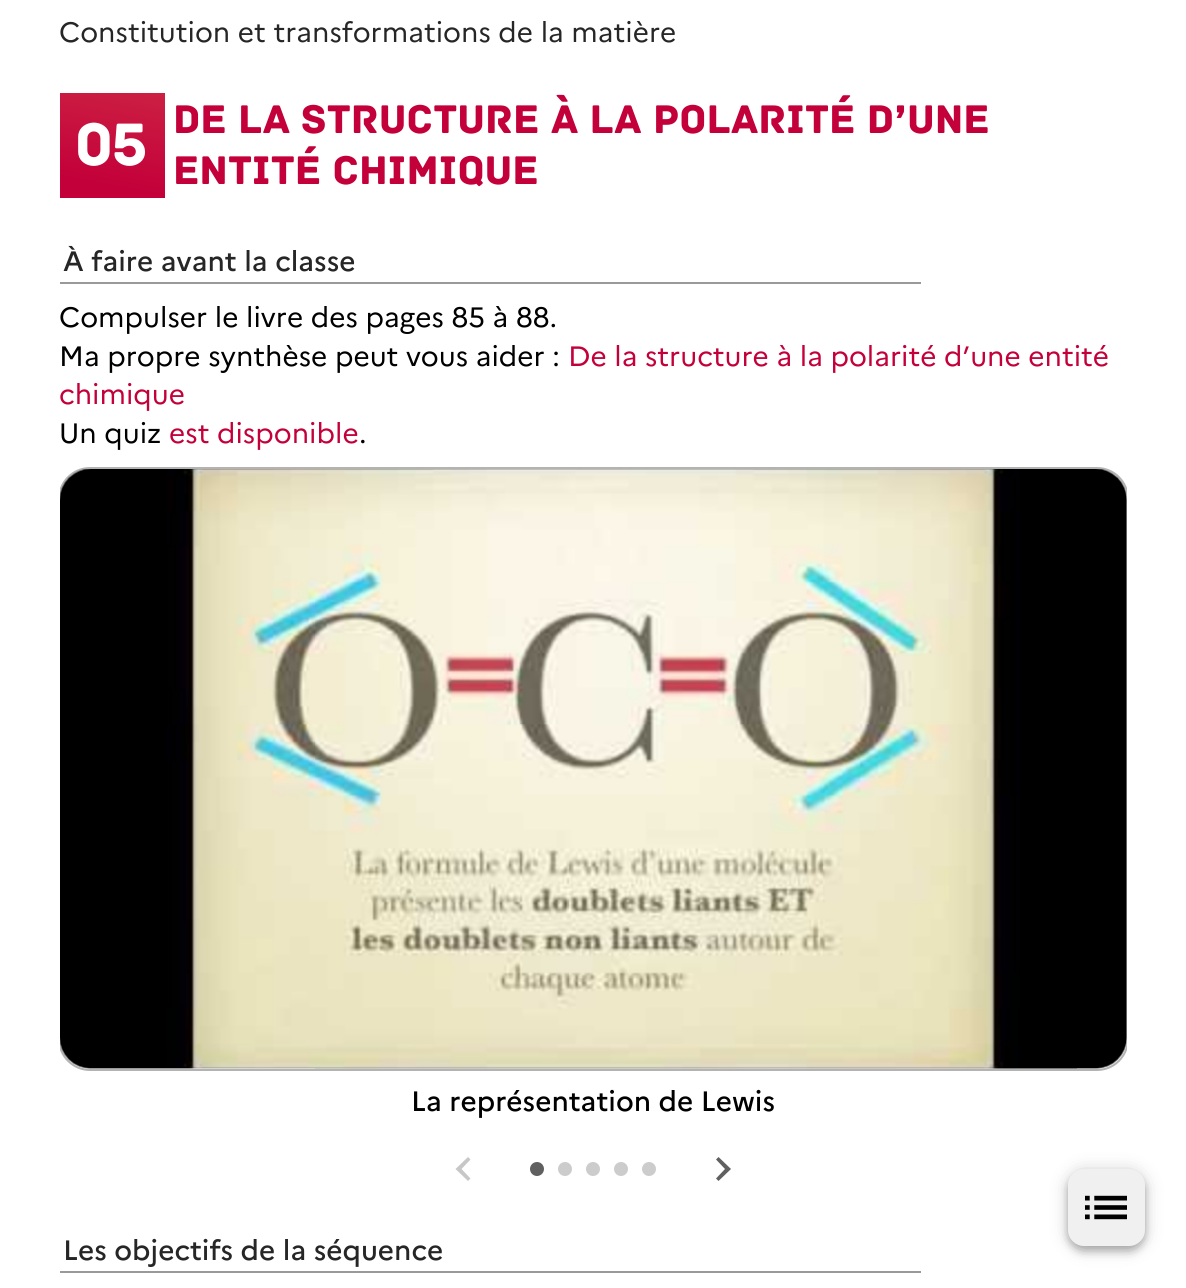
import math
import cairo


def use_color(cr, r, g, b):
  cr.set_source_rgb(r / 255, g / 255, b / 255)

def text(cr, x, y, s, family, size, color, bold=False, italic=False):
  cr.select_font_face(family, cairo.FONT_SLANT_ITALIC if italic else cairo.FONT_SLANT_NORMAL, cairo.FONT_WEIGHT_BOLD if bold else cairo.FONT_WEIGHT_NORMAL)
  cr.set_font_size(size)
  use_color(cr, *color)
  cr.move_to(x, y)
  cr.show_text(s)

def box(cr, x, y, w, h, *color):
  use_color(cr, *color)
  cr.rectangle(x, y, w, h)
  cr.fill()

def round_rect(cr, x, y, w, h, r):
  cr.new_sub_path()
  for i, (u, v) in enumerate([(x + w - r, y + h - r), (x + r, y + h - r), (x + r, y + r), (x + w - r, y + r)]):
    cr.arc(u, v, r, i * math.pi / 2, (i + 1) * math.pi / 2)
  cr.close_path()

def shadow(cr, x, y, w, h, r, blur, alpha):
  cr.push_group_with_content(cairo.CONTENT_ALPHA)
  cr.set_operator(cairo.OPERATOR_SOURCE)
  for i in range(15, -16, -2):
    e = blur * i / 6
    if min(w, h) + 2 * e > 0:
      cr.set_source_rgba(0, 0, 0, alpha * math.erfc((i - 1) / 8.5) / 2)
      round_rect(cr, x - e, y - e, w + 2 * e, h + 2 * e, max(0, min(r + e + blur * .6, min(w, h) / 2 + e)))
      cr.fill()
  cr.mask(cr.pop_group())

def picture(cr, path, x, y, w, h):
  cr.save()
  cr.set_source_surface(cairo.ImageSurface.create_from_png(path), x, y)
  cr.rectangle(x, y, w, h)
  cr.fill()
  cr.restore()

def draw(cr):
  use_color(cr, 255, 255, 255)
  cr.paint()
  gradient = cairo.LinearGradient(101, 205, 123, 85)
  gradient.add_color_stop_rgba(0.17, 0.765, 0, 0.227, 1)
  gradient.add_color_stop_rgba(1, 0.8, 0.125, 0.263, 1)
  cr.set_source(gradient)
  cr.rectangle(60, 93, 105, 105)
  cr.fill()
  box(cr, 60, 282, 861, 2, 153, 153, 153)
  cr.save()
  cr.rectangle(60, 467, 1067, 660)
  cr.clip()
  round_rect(cr, 59, 468, 1069, 602, 31)
  use_color(cr, 179, 179, 179)
  cr.stroke()
  cr.restore()
  picture(cr, "img_01.png", 60, 469, 1067, 600)
  use_color(cr, 199, 199, 199)
  cr.new_path()
  cr.move_to(470.5, 1159.5)
  cr.line_to(461.5, 1169)
  cr.line_to(470.5, 1178.5)
  cr.line_to(468, 1181)
  cr.line_to(455.5, 1169)
  cr.line_to(468, 1157)
  cr.close_path()
  cr.fill()
  use_color(cr, 96, 96, 96)
  cr.arc(537, 1169, 7, 0, 2 * math.pi)
  cr.fill()
  use_color(cr, 204, 204, 204)
  cr.arc(565, 1169, 7, 0, 2 * math.pi)
  cr.fill()
  cr.arc(593, 1169, 7, 0, 2 * math.pi)
  cr.fill()
  cr.arc(621, 1169, 7, 0, 2 * math.pi)
  cr.fill()
  cr.arc(649, 1169, 7, 0, 2 * math.pi)
  cr.fill()
  use_color(cr, 96, 96, 96)
  cr.new_path()
  cr.move_to(718.5, 1157)
  cr.line_to(731, 1169)
  cr.line_to(718.5, 1181)
  cr.line_to(716, 1178.5)
  cr.line_to(725, 1169)
  cr.line_to(716, 1159.5)
  cr.close_path()
  cr.fill()
  box(cr, 60, 1271, 861, 2, 153, 153, 153)
  use_color(cr, 0, 0, 0)
  shadow(cr, 1068, 1171, 77, 77, 16, 9, 0.2)
  shadow(cr, 1068, 1176, 77, 77, 16, 4.5, 0.12)
  shadow(cr, 1068, 1173, 77, 77, 16, 3.5, 0.14)
  use_color(cr, 240, 240, 240)
  round_rect(cr, 1068, 1169, 77, 77, 16)
  cr.fill()
  picture(cr, "img_02.png", 1085, 1195, 42, 25)
  text(cr, 59, 42, "Constitution et transformations de la matière", "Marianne", 28, (38, 38, 38))
  text(cr, 75, 165, "05", "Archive", 63, (255, 255, 255))
  text(cr, 173, 133, "De la structure à la polarité d’une", "Archive", 42, (195, 0, 58))
  text(cr, 173, 184, "entité chimique", "Archive", 42, (195, 0, 58))
  text(cr, 63, 271, "À faire avant la classe", "Marianne Medium", 28, (38, 38, 38))
  text(cr, 59, 327, "Compulser le livre des pages 85 à 88.", "Marianne", 28, (0, 0, 0))
  text(cr, 59, 366, "Ma propre synthèse peut vous aider :", "Marianne", 28, (0, 0, 0))
  text(cr, 568, 366, "De la structure à la polarité d’une entité", "Marianne", 28, (195, 0, 58))
  text(cr, 59, 404, "chimique", "Marianne", 28, (195, 0, 58))
  text(cr, 59, 443, "Un quiz", "Marianne", 28, (0, 0, 0))
  text(cr, 169, 443, "est disponible", "Marianne", 28, (195, 0, 58))
  text(cr, 359, 443, ".", "Marianne", 28, (0, 0, 0))
  text(cr, 411, 1111, "La représentation de Lewis", "Marianne Medium", 28, (0, 0, 0))
  text(cr, 63, 1260, "Les objectifs de la séquence", "Marianne Medium", 28, (38, 38, 38))


surface = cairo.ImageSurface(cairo.FORMAT_RGB24, 1186, 1288)
cr = cairo.Context(surface)
options = cairo.FontOptions()
options.set_hint_metrics(cairo.HINT_METRICS_OFF)
options.set_hint_style(cairo.HINT_STYLE_NONE)
cr.set_font_options(options)
cr.set_miter_limit(4)
draw(cr)
surface.write_to_png("out.png")
